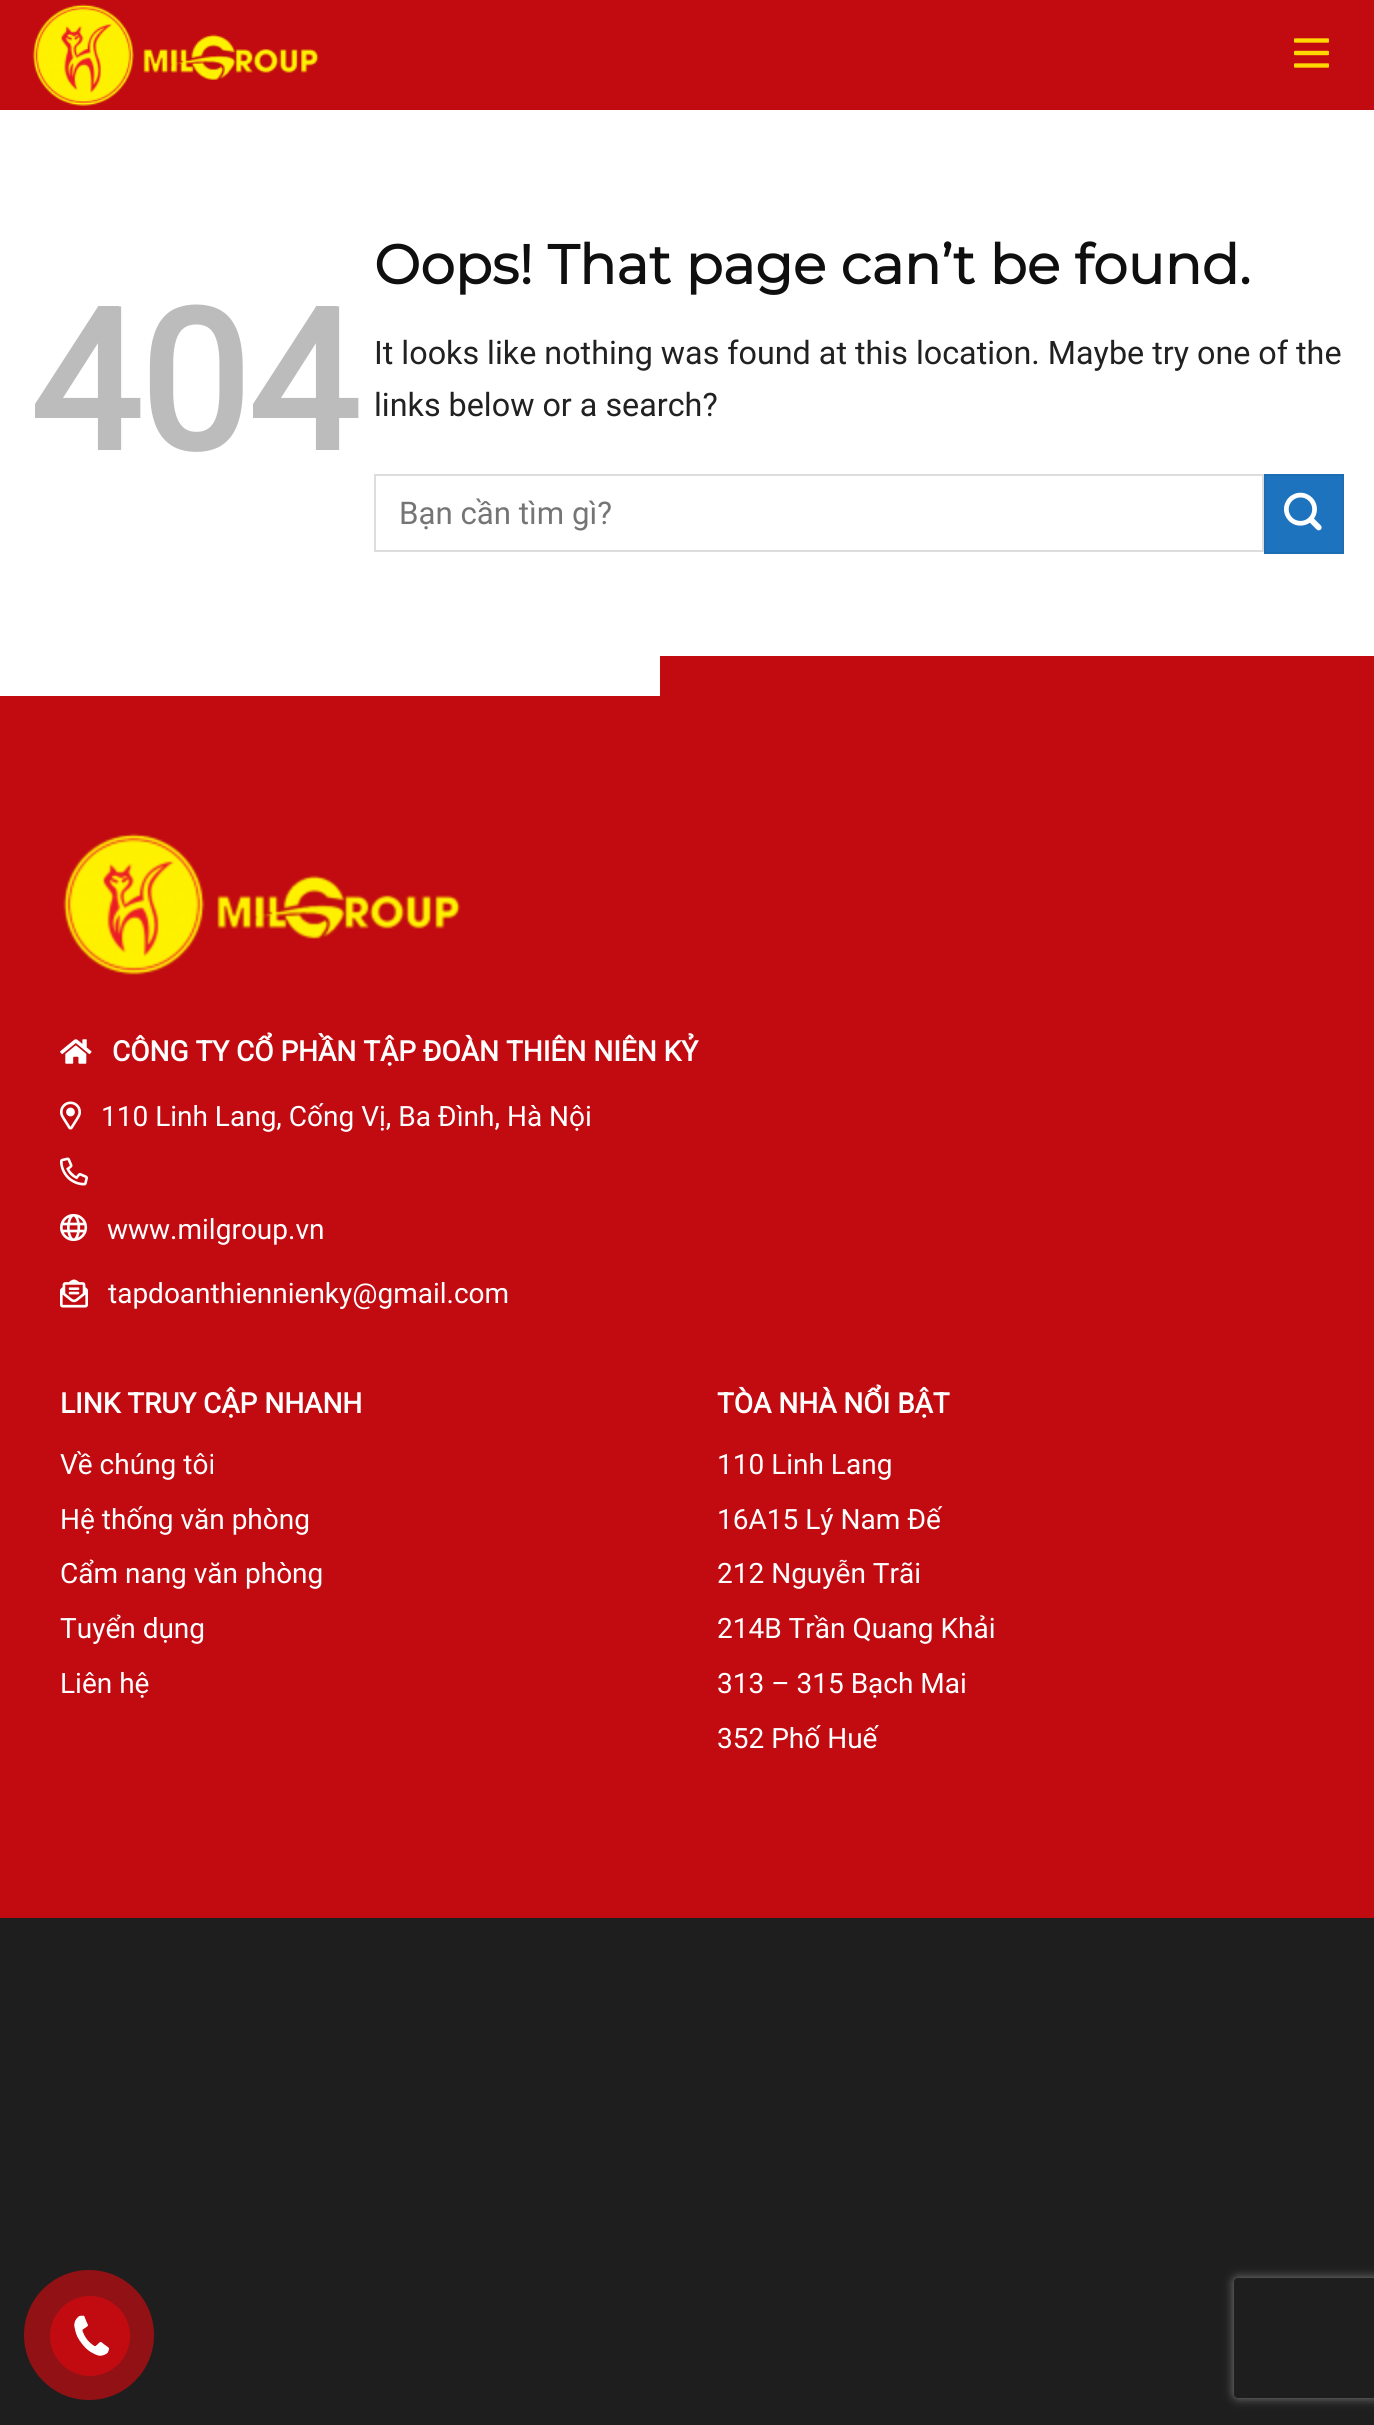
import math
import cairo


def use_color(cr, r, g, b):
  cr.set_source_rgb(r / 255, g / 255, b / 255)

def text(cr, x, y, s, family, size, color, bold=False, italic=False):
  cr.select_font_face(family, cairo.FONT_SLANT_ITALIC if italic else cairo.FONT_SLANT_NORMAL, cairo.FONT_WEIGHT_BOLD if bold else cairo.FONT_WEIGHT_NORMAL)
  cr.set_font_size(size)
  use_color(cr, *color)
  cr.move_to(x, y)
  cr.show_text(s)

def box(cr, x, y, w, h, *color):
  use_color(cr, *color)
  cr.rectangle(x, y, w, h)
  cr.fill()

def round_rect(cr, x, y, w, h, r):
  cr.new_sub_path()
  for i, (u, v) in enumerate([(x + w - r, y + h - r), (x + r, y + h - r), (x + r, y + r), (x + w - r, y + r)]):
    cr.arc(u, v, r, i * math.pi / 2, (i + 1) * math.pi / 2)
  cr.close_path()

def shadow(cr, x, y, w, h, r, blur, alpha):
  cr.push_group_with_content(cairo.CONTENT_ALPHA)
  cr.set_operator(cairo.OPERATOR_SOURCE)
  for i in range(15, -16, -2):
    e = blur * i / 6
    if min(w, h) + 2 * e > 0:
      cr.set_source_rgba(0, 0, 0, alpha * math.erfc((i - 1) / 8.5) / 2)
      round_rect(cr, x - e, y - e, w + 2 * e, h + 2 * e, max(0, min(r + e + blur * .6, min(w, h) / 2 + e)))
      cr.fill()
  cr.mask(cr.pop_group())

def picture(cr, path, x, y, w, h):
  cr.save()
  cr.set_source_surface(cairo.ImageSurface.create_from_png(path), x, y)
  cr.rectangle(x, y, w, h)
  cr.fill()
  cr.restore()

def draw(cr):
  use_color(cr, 30, 30, 30)
  cr.paint()
  box(cr, 0, 110, 1374, 546, 255, 255, 255)
  box(cr, 0, 0, 1374, 110, 194, 11, 17)
  picture(cr, "img_01.png", 32, 4, 287, 102)
  picture(cr, "img_02.png", 1294, 38, 35, 30)
  cr.rectangle(375, 475, 888, 76)
  use_color(cr, 221, 221, 221)
  cr.stroke()
  use_color(cr, 30, 115, 190)
  cr.rectangle(1265, 475, 78, 78)
  cr.fill_preserve()
  use_color(cr, 29, 109, 181)
  cr.stroke()
  picture(cr, "img_03.png", 1284, 492, 38, 39)
  box(cr, 0, 656, 1374, 1262, 194, 11, 17)
  box(cr, 0, 656, 660, 40, 255, 255, 255)
  picture(cr, "img_04.png", 63, 833, 398, 142)
  picture(cr, "img_05.png", 60, 1039, 32, 25)
  picture(cr, "img_06.png", 60, 1101, 21, 29)
  picture(cr, "img_07.png", 60, 1157, 28, 29)
  picture(cr, "img_08.png", 60, 1213, 28, 29)
  picture(cr, "img_09.png", 60, 1279, 28, 29)
  use_color(cr, 145, 17, 21)
  cr.arc(89, 2335, 65, 0, 2 * math.pi)
  cr.fill()
  use_color(cr, 194, 11, 17)
  cr.arc(90, 2336, 40, 0, 2 * math.pi)
  cr.fill()
  picture(cr, "img_10.png", 74, 2315, 35, 41)
  cr.save()
  cr.set_fill_rule(cairo.FILL_RULE_EVEN_ODD)
  cr.new_path()
  cr.move_to(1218, 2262)
  cr.line_to(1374, 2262)
  cr.line_to(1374, 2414)
  cr.line_to(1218, 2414)
  cr.close_path()
  cr.move_to(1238, 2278)
  cr.line_to(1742, 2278)
  cr.curve_to(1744, 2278, 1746, 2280, 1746, 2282)
  cr.line_to(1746, 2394)
  cr.curve_to(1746, 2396, 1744, 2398, 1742, 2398)
  cr.line_to(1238, 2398)
  cr.curve_to(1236, 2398, 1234, 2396, 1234, 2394)
  cr.line_to(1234, 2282)
  cr.curve_to(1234, 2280, 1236, 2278, 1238, 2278)
  cr.close_path()
  cr.clip()
  use_color(cr, 128, 128, 128)
  shadow(cr, 1234, 2278, 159, 120, 4, 5, 1)
  cr.restore()
  text(cr, 30, 450, "404", "Roboto", 194, (188, 188, 188), bold=True)
  text(cr, 374, 284, "Oops! That page can’t be found.", "Montserrat", 55, (15, 15, 15), bold=True)
  text(cr, 374, 364, "It looks like nothing was found at this location. Maybe try one of the", "Roboto", 32.3, (33, 33, 33))
  text(cr, 374, 416, "links below or a search?", "Roboto", 32.3, (33, 33, 33))
  text(cr, 399, 524, "Bạn cần tìm gì?", "Roboto", 31.25, (117, 117, 117))
  text(cr, 112, 1061, "CÔNG TY CỔ PHẦN TẬP ĐOÀN THIÊN NIÊN KỶ", "Roboto", 28, (255, 255, 255), bold=True)
  text(cr, 101, 1126, "110 Linh Lang, Cống Vị, Ba Đình, Hà Nội", "Roboto", 28, (255, 255, 255))
  text(cr, 107, 1239, "www.milgroup.vn", "Roboto", 28, (255, 255, 255))
  text(cr, 108, 1303, "tapdoanthiennienky@gmail.com", "Roboto", 28, (255, 255, 255))
  text(cr, 60, 1413, "LINK TRUY CẬP NHANH", "Roboto", 28, (255, 255, 255), bold=True)
  text(cr, 60, 1474, "Về chúng tôi", "Roboto", 28, (255, 255, 255))
  text(cr, 60, 1529, "Hệ thống văn phòng", "Roboto", 28, (255, 255, 255))
  text(cr, 60, 1583, "Cẩm nang văn phòng", "Roboto", 28, (255, 255, 255))
  text(cr, 60, 1638, "Tuyển dụng", "Roboto", 28, (255, 255, 255))
  text(cr, 60, 1693, "Liên hệ", "Roboto", 28, (255, 255, 255))
  text(cr, 717, 1413, "TÒA NHÀ NỔI BẬT", "Roboto", 28, (255, 255, 255), bold=True)
  text(cr, 717, 1474, "110 Linh Lang", "Roboto", 28, (255, 255, 255))
  text(cr, 717, 1529, "16A15 Lý Nam Đế", "Roboto", 28, (255, 255, 255))
  text(cr, 717, 1583, "212 Nguyễn Trãi", "Roboto", 28, (255, 255, 255))
  text(cr, 717, 1638, "214B Trần Quang Khải", "Roboto", 28, (255, 255, 255))
  text(cr, 717, 1693, "313 – 315 Bạch Mai", "Roboto", 28, (255, 255, 255))
  text(cr, 717, 1748, "352 Phố Huế", "Roboto", 28, (255, 255, 255))


surface = cairo.ImageSurface(cairo.FORMAT_RGB24, 1374, 2425)
cr = cairo.Context(surface)
options = cairo.FontOptions()
options.set_hint_metrics(cairo.HINT_METRICS_OFF)
options.set_hint_style(cairo.HINT_STYLE_NONE)
cr.set_font_options(options)
cr.set_miter_limit(4)
draw(cr)
surface.write_to_png("out.png")
